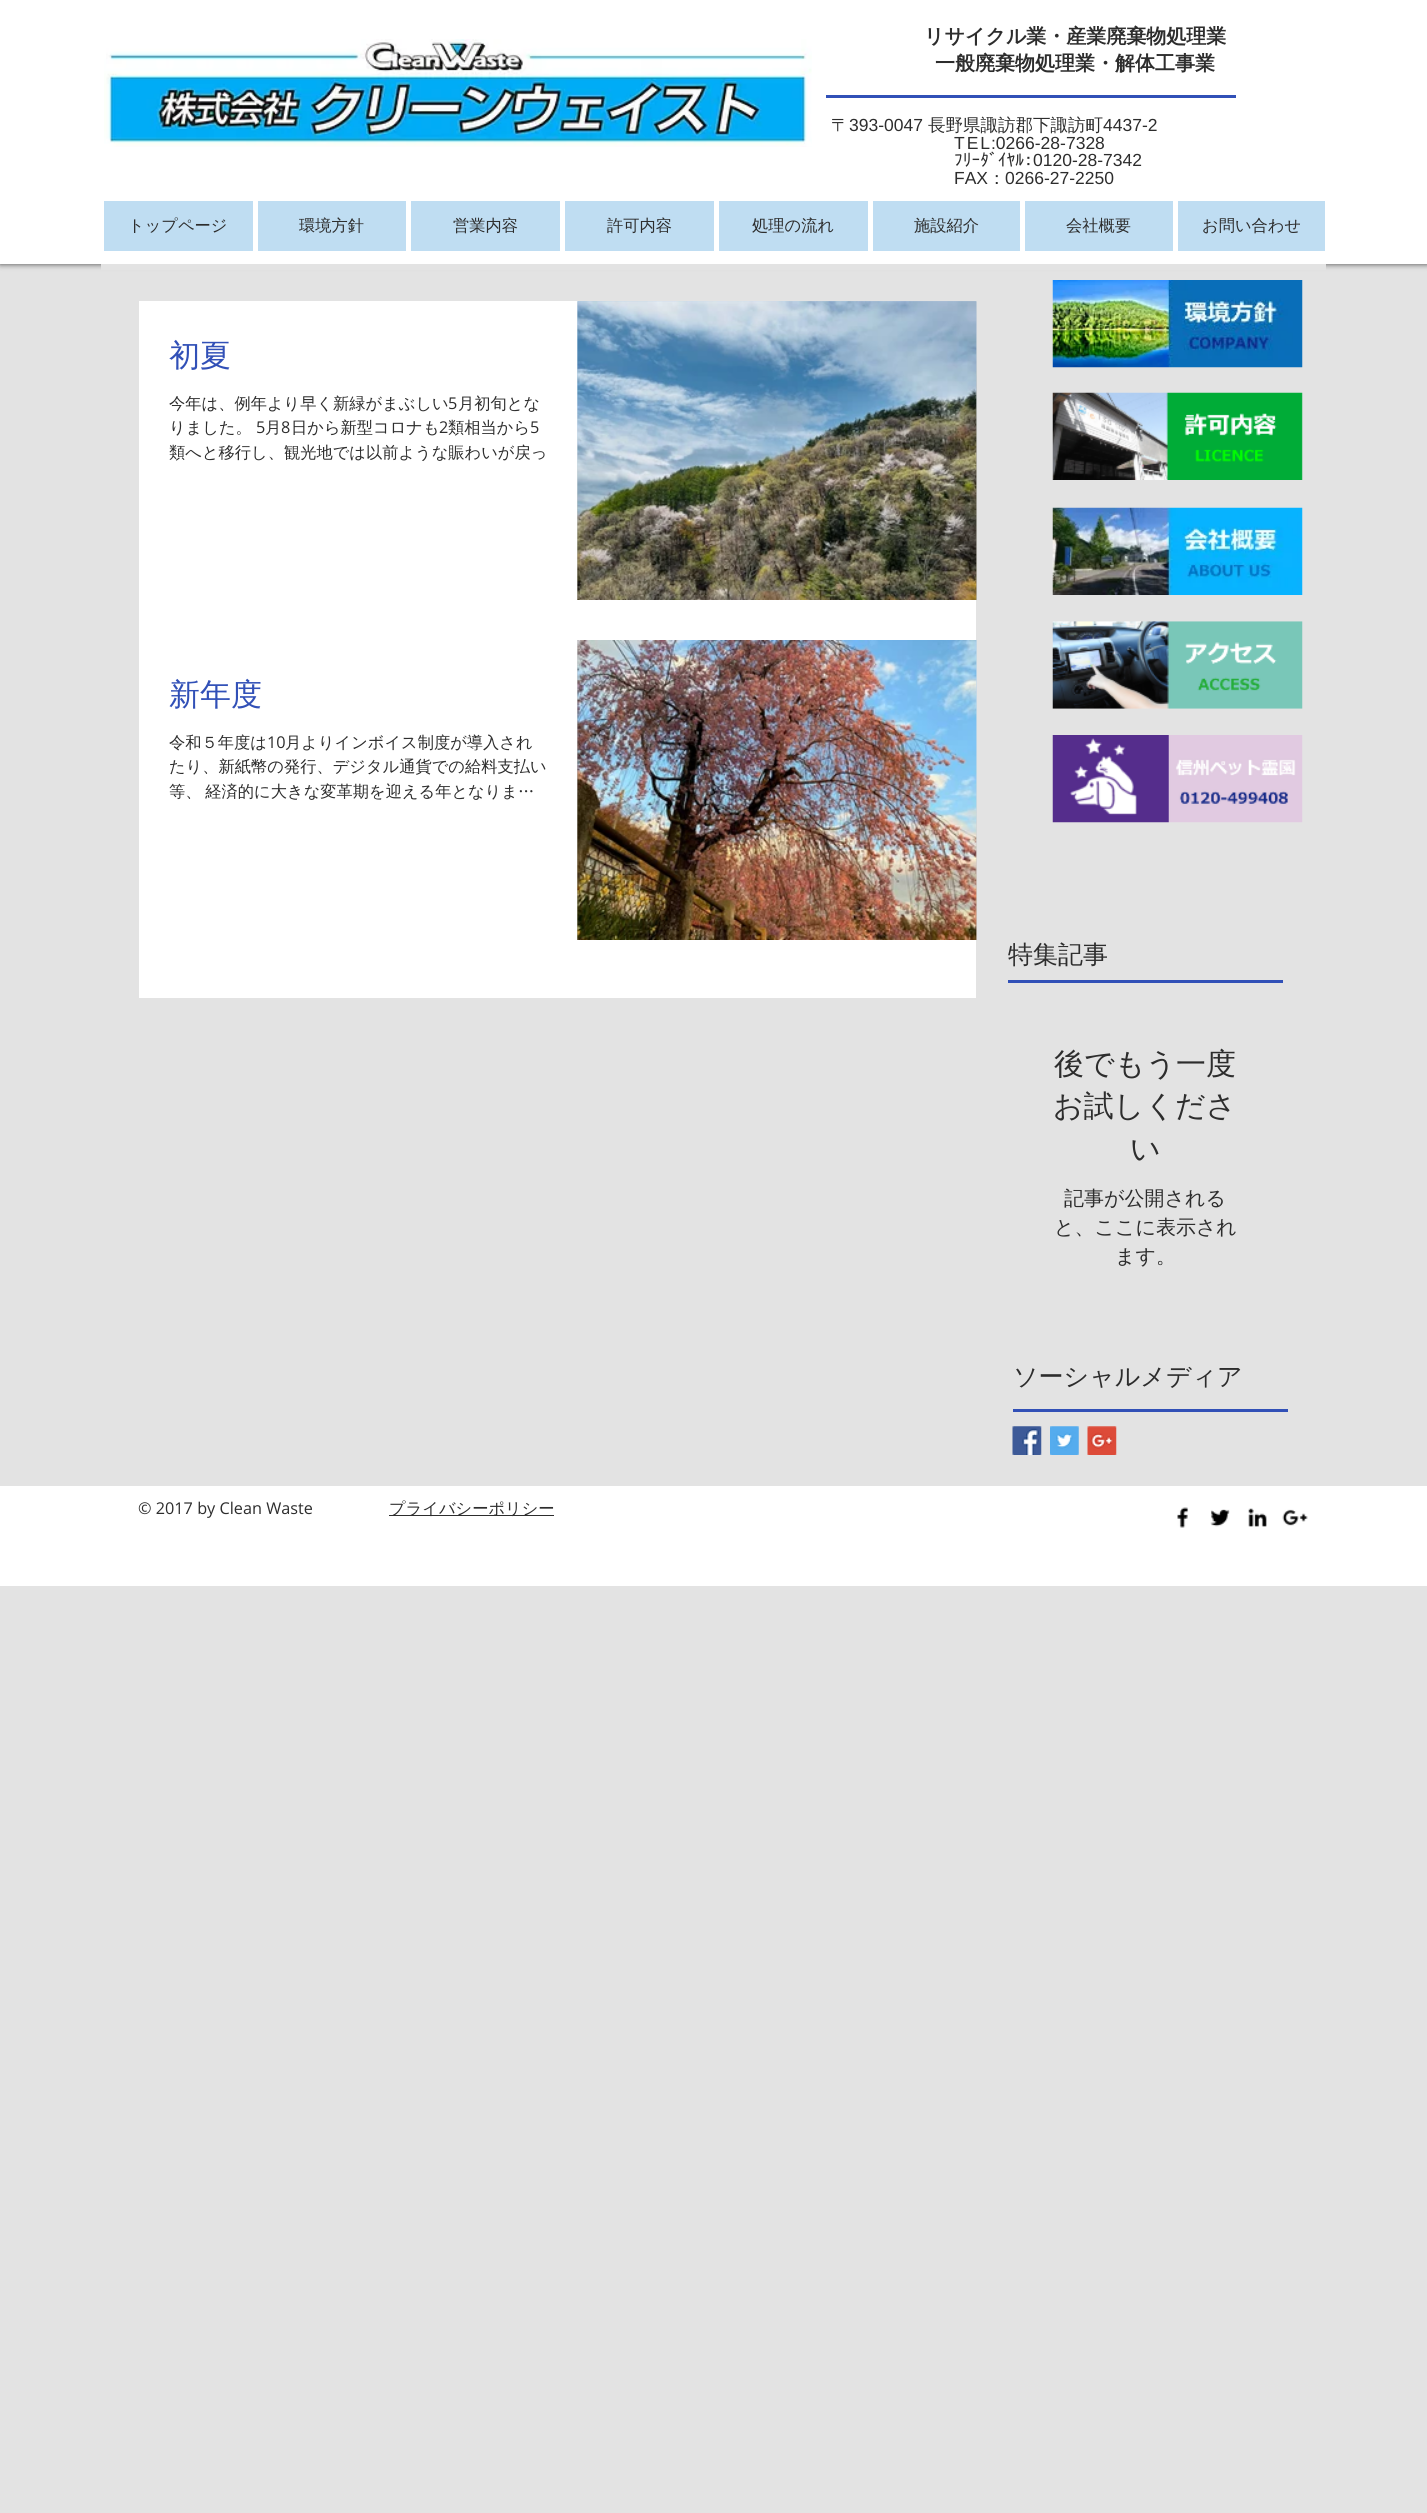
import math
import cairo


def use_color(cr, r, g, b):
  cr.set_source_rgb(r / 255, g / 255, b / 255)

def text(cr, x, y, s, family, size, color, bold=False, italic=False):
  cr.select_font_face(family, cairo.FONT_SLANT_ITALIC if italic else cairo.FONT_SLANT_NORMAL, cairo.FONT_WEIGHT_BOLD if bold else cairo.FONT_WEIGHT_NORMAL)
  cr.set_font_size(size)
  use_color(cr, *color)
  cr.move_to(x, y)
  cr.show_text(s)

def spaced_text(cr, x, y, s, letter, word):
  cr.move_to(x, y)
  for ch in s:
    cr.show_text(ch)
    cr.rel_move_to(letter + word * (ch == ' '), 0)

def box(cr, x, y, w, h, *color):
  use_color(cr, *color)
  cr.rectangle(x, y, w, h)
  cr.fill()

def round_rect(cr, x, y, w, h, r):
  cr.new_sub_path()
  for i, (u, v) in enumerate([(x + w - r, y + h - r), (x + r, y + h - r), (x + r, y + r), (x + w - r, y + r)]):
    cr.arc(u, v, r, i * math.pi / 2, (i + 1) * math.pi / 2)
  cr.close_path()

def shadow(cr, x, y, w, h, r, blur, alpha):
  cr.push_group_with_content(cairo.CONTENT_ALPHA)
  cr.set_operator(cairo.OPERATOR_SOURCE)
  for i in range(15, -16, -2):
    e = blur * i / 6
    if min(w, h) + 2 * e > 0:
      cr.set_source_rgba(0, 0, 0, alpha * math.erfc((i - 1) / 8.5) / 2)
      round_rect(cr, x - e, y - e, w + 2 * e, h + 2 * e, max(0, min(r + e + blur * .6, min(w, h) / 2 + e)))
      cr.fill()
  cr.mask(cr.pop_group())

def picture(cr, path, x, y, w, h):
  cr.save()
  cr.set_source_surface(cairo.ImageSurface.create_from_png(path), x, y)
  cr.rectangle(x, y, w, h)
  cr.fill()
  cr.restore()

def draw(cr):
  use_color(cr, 227, 227, 227)
  cr.paint()
  use_color(cr, 0, 0, 0)
  shadow(cr, 0, 0, 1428, 264, 0, 3, 0.7)
  box(cr, 0, 0, 1427, 264, 255, 255, 255)
  picture(cr, "img_01.png", 104, 39, 708, 108)
  box(cr, 826, 95, 410, 3, 49, 80, 183)
  box(cr, 104, 201, 149, 50, 191, 221, 242)
  box(cr, 258, 201, 148, 50, 191, 221, 242)
  box(cr, 411, 201, 149, 50, 191, 221, 242)
  box(cr, 565, 201, 149, 50, 191, 221, 242)
  box(cr, 719, 201, 149, 50, 191, 221, 242)
  box(cr, 873, 201, 147, 50, 191, 221, 242)
  box(cr, 1025, 201, 148, 50, 191, 221, 242)
  box(cr, 1178, 201, 147, 50, 191, 221, 242)
  picture(cr, "img_02.png", 1052, 280, 251, 88)
  picture(cr, "img_03.png", 1052, 392, 251, 88)
  picture(cr, "img_04.png", 1052, 507, 251, 88)
  picture(cr, "img_05.png", 1052, 621, 251, 88)
  picture(cr, "img_06.png", 1052, 735, 251, 88)
  box(cr, 101, 264, 1225, 6, 227, 227, 227)
  box(cr, 139, 301, 837, 697, 255, 255, 255)
  picture(cr, "img_07.png", 577, 301, 400, 299)
  picture(cr, "img_08.png", 577, 301, 400, 299)
  picture(cr, "img_09.png", 577, 640, 400, 300)
  picture(cr, "img_10.png", 577, 640, 400, 300)
  box(cr, 1008, 980, 275, 3, 49, 80, 183)
  box(cr, 1013, 1409, 275, 3, 49, 80, 183)
  picture(cr, "img_11.png", 1012, 1426, 30, 29)
  picture(cr, "img_12.png", 1050, 1426, 29, 29)
  picture(cr, "img_13.png", 1087, 1426, 30, 29)
  box(cr, 0, 1486, 1427, 100, 255, 255, 255)
  box(cr, 389, 1515, 165, 1, 45, 45, 45)
  picture(cr, "img_14.png", 1177, 1507, 12, 21)
  picture(cr, "img_15.png", 1210, 1509, 20, 18)
  picture(cr, "img_16.png", 1248, 1508, 19, 19)
  picture(cr, "img_17.png", 1282, 1509, 26, 17)
  text(cr, 924, 43, "リサイクル業・産業廃棄物処理業", "WenQuanYi Zen Hei", 20, (45, 45, 45), bold=True)
  text(cr, 935, 70, "一般廃棄物処理業・解体工事業", "WenQuanYi Zen Hei", 20, (45, 45, 45), bold=True)
  text(cr, 831, 131, "〒", "WenQuanYi Zen Hei Medium", 17.5, (45, 45, 45))
  text(cr, 849, 131, "393-0047", "Liberation Sans", 17.5, (45, 45, 45))
  text(cr, 928, 131, "長野県諏訪郡下諏訪町", "WenQuanYi Zen Hei Medium", 17.5, (45, 45, 45))
  text(cr, 1103, 131, "4437-2", "Liberation Sans", 17.5, (45, 45, 45))
  spaced_text(cr, 954, 149, "TEL", 2, 0)
  text(cr, 991, 149, ":0266-28-7328", "Liberation Sans", 17.5, (45, 45, 45))
  text(cr, 954, 166, "ﾌﾘｰﾀﾞｲﾔﾙ：", "IPAPGothic", 17.5, (45, 45, 45))
  text(cr, 1033, 166, "0120-28-7342", "Liberation Sans", 17.5, (45, 45, 45))
  text(cr, 954, 184, "FAX", "Liberation Sans", 17.5, (45, 45, 45))
  text(cr, 988, 184, "：", "WenQuanYi Zen Hei Medium", 17.5, (45, 45, 45))
  text(cr, 1005, 184, "0266-27-2250", "Liberation Sans", 17.5, (45, 45, 45))
  text(cr, 128, 231, "トップページ", "WenQuanYi Zen Hei Medium", 16.25, (45, 45, 45))
  text(cr, 299, 231, "環境方針", "WenQuanYi Zen Hei Medium", 16.25, (45, 45, 45))
  text(cr, 453, 231, "営業内容", "WenQuanYi Zen Hei Medium", 16.25, (45, 45, 45))
  text(cr, 607, 231, "許可内容", "WenQuanYi Zen Hei Medium", 16.25, (45, 45, 45))
  text(cr, 752, 231, "処理の流れ", "WenQuanYi Zen Hei Medium", 16.25, (45, 45, 45))
  text(cr, 914, 231, "施設紹介", "WenQuanYi Zen Hei Medium", 16.25, (45, 45, 45))
  text(cr, 1066, 231, "会社概要", "WenQuanYi Zen Hei Medium", 16.25, (45, 45, 45))
  text(cr, 1202, 231, "お問い合わせ", "WenQuanYi Zen Hei Medium", 16.25, (45, 45, 45))
  text(cr, 169, 366, "初夏", "WenQuanYi Zen Hei Medium", 31, (49, 80, 183))
  text(cr, 169, 409, "今年は、例年より早く新緑がまぶしい", "WenQuanYi Zen Hei Medium", 16.25, (45, 45, 45))
  text(cr, 448, 409, "5", "Open Sans", 16.25, (45, 45, 45))
  text(cr, 458, 409, "月初旬とな", "WenQuanYi Zen Hei Medium", 16.25, (45, 45, 45))
  text(cr, 169, 433, "りました。", "WenQuanYi Zen Hei Medium", 16.25, (45, 45, 45))
  text(cr, 256, 433, "5", "Open Sans", 16.25, (45, 45, 45))
  text(cr, 265, 433, "月", "WenQuanYi Zen Hei Medium", 16.25, (45, 45, 45))
  text(cr, 281, 433, "8", "Open Sans", 16.25, (45, 45, 45))
  text(cr, 291, 433, "日から新型コロナも", "WenQuanYi Zen Hei Medium", 16.25, (45, 45, 45))
  text(cr, 439, 433, "2", "Open Sans", 16.25, (45, 45, 45))
  text(cr, 448, 433, "類相当から", "WenQuanYi Zen Hei Medium", 16.25, (45, 45, 45))
  text(cr, 530, 433, "5", "Open Sans", 16.25, (45, 45, 45))
  text(cr, 169, 458, "類へと移行し、観光地では以前ような賑わいが戻っ", "WenQuanYi Zen Hei Medium", 16.25, (45, 45, 45))
  text(cr, 169, 705, "新年度", "WenQuanYi Zen Hei Medium", 31, (49, 80, 183))
  text(cr, 169, 748, "令和５年度は", "WenQuanYi Zen Hei Medium", 16.25, (45, 45, 45))
  text(cr, 267, 748, "10", "Open Sans", 16.25, (45, 45, 45))
  text(cr, 285, 748, "月よりインボイス制度が導入され", "WenQuanYi Zen Hei Medium", 16.25, (45, 45, 45))
  text(cr, 169, 772, "たり、新紙幣の発行、デジタル通貨での給料支払い", "WenQuanYi Zen Hei Medium", 16.25, (45, 45, 45))
  spaced_text(cr, 169, 797, "等、 経済的に大きな変革期を迎える年となりま…", 0, -1)
  text(cr, 1008, 963, "特集記事", "WenQuanYi Zen Hei Medium", 25, (45, 45, 45))
  text(cr, 1054, 1074, "後でもう一度", "WenQuanYi Zen Hei Medium", 30, (45, 45, 45))
  text(cr, 1053, 1116, "お試しくださ", "WenQuanYi Zen Hei Medium", 30, (45, 45, 45))
  text(cr, 1130, 1159, "い", "WenQuanYi Zen Hei Medium", 30, (45, 45, 45))
  text(cr, 1064, 1205, "記事が公開される", "WenQuanYi Zen Hei Medium", 20, (45, 45, 45))
  text(cr, 1054, 1234, "と、ここに表示され", "WenQuanYi Zen Hei Medium", 20, (45, 45, 45))
  text(cr, 1115, 1263, "ます。", "WenQuanYi Zen Hei Medium", 20, (45, 45, 45))
  text(cr, 1013, 1385, "ソーシャルメディア", "WenQuanYi Zen Hei Medium", 25, (45, 45, 45))
  text(cr, 138, 1514, "© 2017 by Clean Waste", "Open Sans", 16.25, (45, 45, 45))
  text(cr, 389, 1514, "プライバシーポリシー", "WenQuanYi Zen Hei Medium", 16.25, (45, 45, 45))


surface = cairo.ImageSurface(cairo.FORMAT_RGB24, 1427, 2513)
cr = cairo.Context(surface)
options = cairo.FontOptions()
options.set_hint_metrics(cairo.HINT_METRICS_OFF)
options.set_hint_style(cairo.HINT_STYLE_NONE)
cr.set_font_options(options)
cr.set_miter_limit(4)
draw(cr)
surface.write_to_png("out.png")
